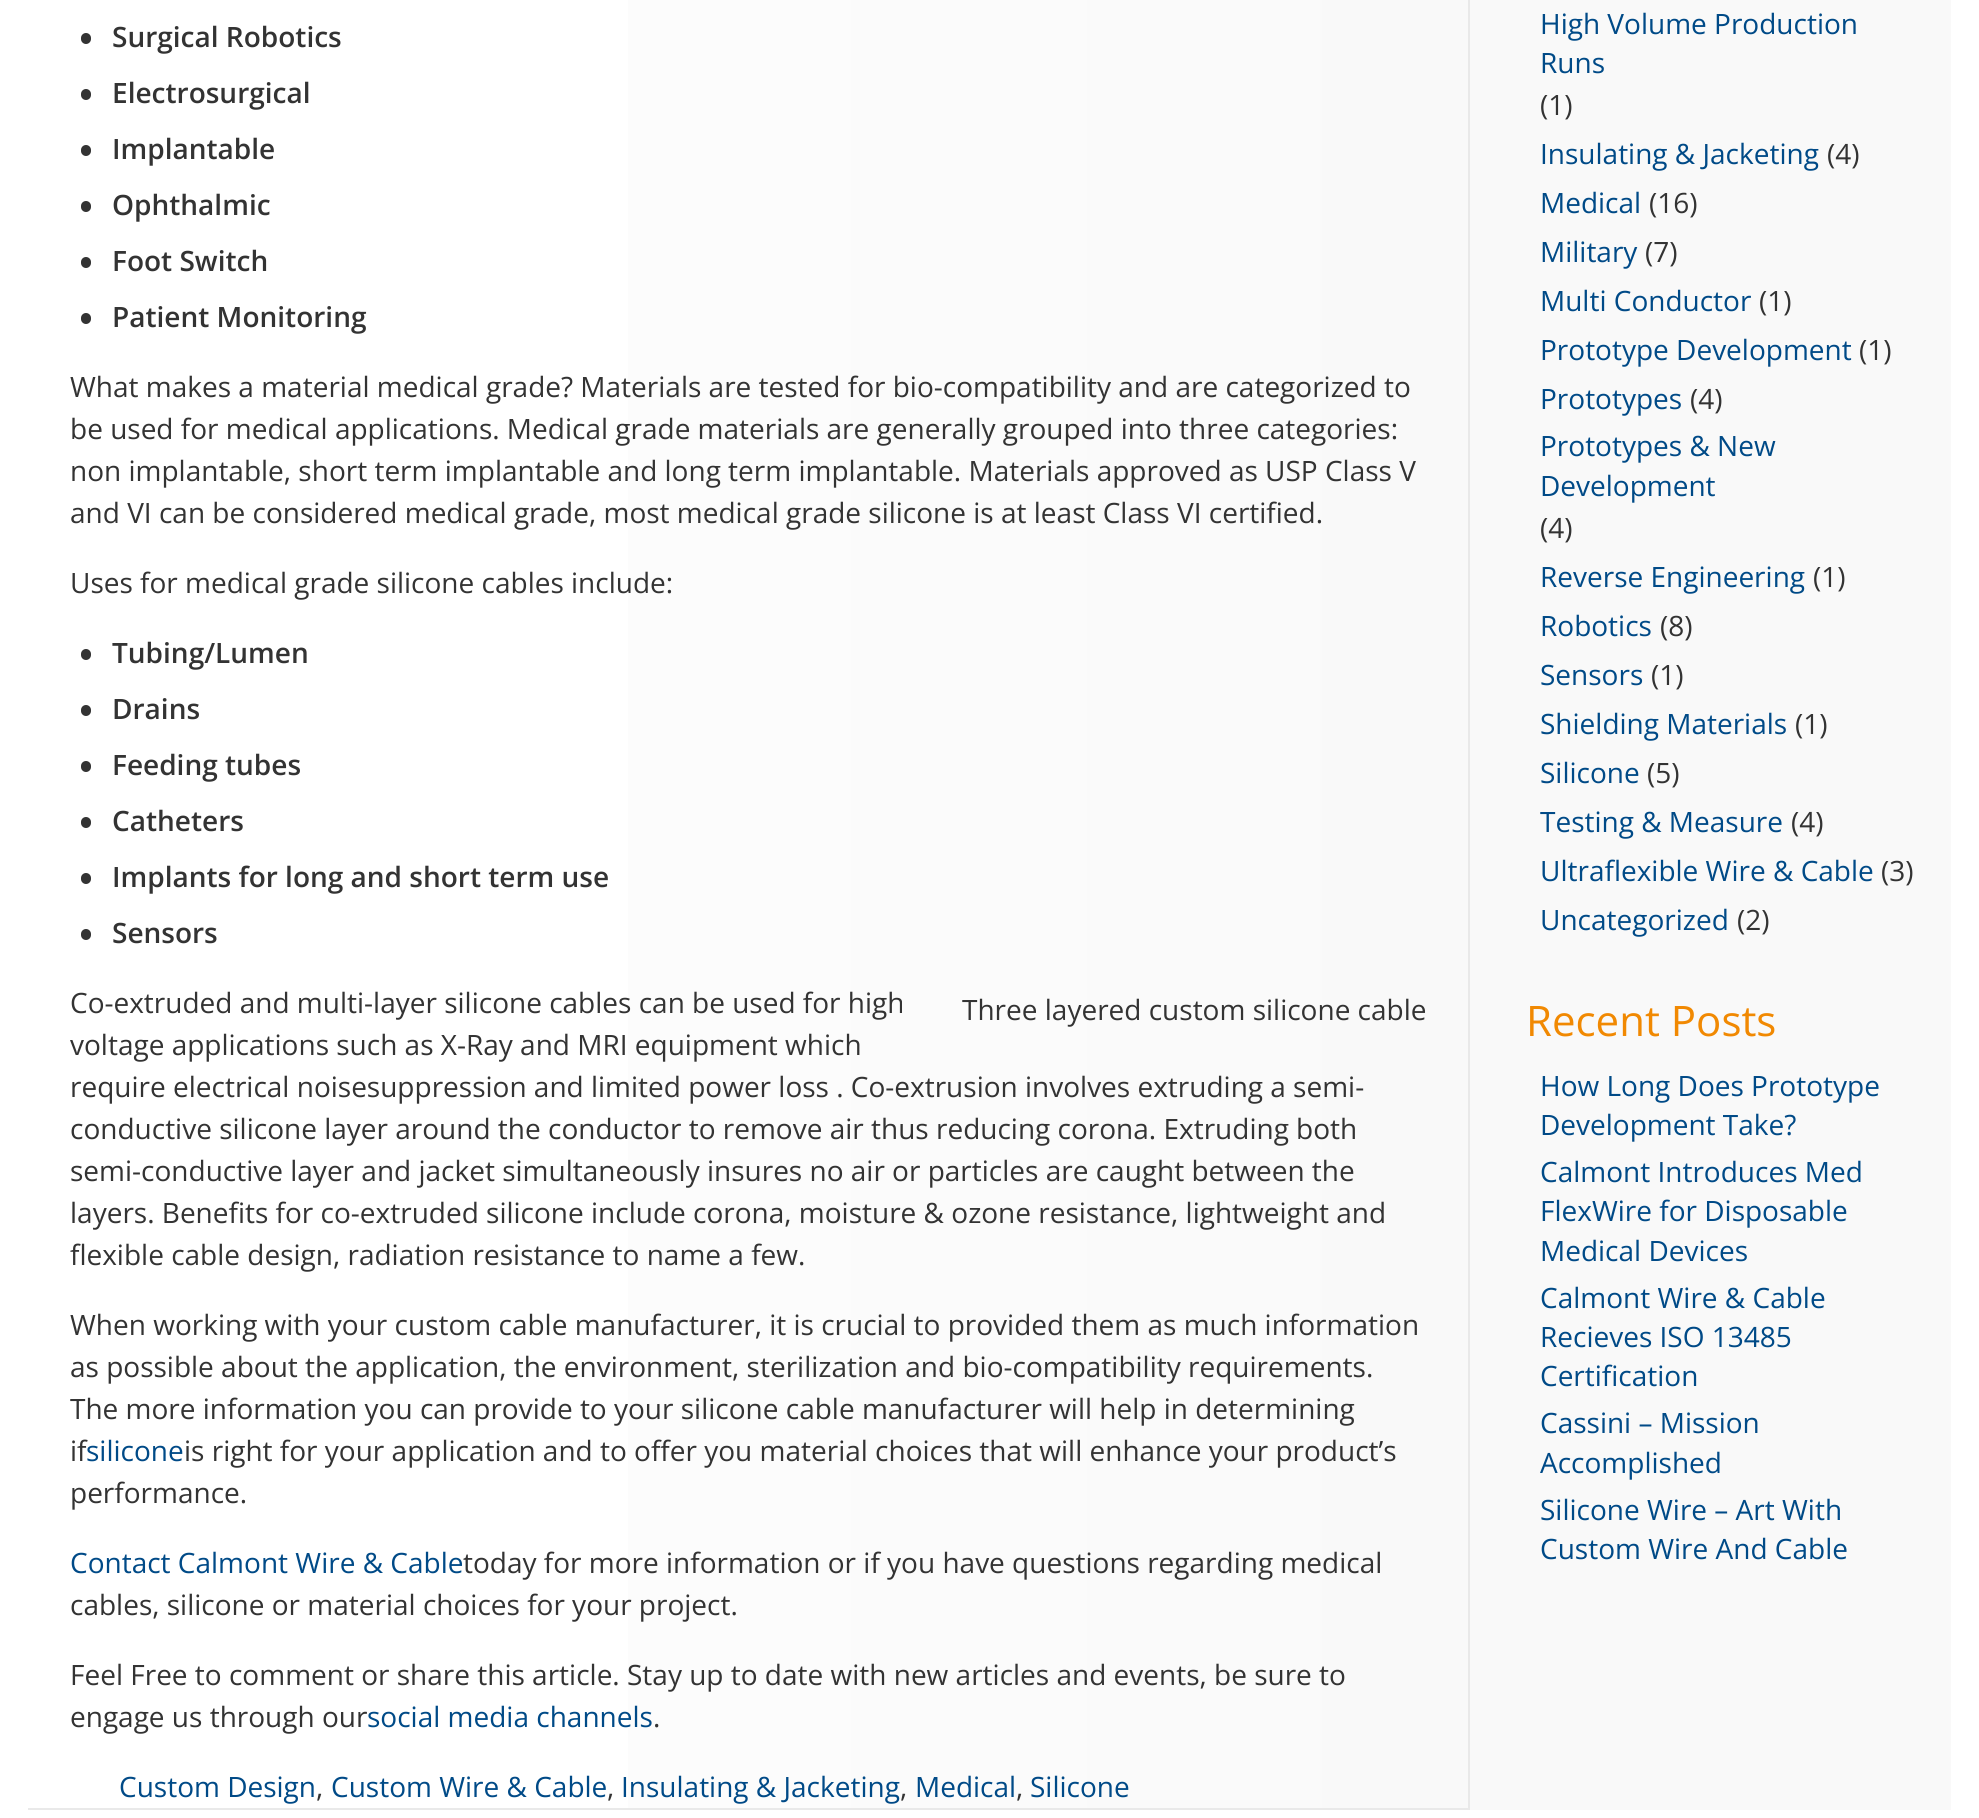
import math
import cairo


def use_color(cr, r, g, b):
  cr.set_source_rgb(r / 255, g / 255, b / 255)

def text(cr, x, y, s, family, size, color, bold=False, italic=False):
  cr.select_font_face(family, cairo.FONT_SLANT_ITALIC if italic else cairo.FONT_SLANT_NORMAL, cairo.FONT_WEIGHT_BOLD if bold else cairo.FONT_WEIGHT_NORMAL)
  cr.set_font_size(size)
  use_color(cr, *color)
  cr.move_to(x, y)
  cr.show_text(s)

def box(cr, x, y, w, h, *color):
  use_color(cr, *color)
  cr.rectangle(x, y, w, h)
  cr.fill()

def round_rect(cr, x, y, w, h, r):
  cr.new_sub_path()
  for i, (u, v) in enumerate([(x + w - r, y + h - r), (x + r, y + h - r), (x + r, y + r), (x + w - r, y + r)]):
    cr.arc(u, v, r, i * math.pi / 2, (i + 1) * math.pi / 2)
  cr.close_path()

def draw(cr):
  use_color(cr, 255, 255, 255)
  cr.paint()
  gradient = cairo.LinearGradient(28, 520, 1468, 520)
  gradient.add_color_stop_rgba(0, 1, 1, 1, 1)
  gradient.add_color_stop_rgba(1, 0.976, 0.976, 0.976, 1)
  cr.set_source(gradient)
  cr.rectangle(628, 0, 840, 1808)
  cr.fill()
  box(cr, 1468, 0, 2, 1810, 233, 233, 233)
  box(cr, 28, 1808, 1442, 2, 233, 233, 233)
  use_color(cr, 51, 51, 51)
  round_rect(cr, 81, 33, 10, 11, 5)
  cr.fill()
  round_rect(cr, 81, 89, 10, 11, 5)
  cr.fill()
  round_rect(cr, 81, 145, 10, 11, 5)
  cr.fill()
  round_rect(cr, 81, 201, 10, 11, 5)
  cr.fill()
  round_rect(cr, 81, 257, 10, 11, 5)
  cr.fill()
  round_rect(cr, 81, 313, 10, 11, 5)
  cr.fill()
  round_rect(cr, 81, 649, 10, 11, 5)
  cr.fill()
  round_rect(cr, 81, 705, 10, 11, 5)
  cr.fill()
  round_rect(cr, 81, 761, 10, 11, 5)
  cr.fill()
  round_rect(cr, 81, 817, 10, 11, 5)
  cr.fill()
  round_rect(cr, 81, 873, 10, 11, 5)
  cr.fill()
  round_rect(cr, 81, 929, 10, 11, 5)
  cr.fill()
  box(cr, 1470, 0, 481, 1810, 249, 249, 249)
  text(cr, 112, 47, "Surgical Robotics", "Open Sans SemiBold", 28, (51, 51, 51))
  text(cr, 112, 103, "Electrosurgical", "Open Sans SemiBold", 28, (51, 51, 51))
  text(cr, 112, 159, "Implantable", "Open Sans SemiBold", 28, (51, 51, 51))
  text(cr, 112, 215, "Ophthalmic", "Open Sans SemiBold", 28, (51, 51, 51))
  text(cr, 112, 271, "Foot Switch", "Open Sans SemiBold", 28, (51, 51, 51))
  text(cr, 112, 327, "Patient Monitoring", "Open Sans SemiBold", 28, (51, 51, 51))
  text(cr, 70, 397, "What makes a material medical grade? Materials are tested for bio-compatibility and are categorized to", "Open Sans", 28, (51, 51, 51))
  text(cr, 70, 439, "be used for medical applications. Medical grade materials are generally grouped into three categories:", "Open Sans", 28, (51, 51, 51))
  text(cr, 70, 481, "non implantable, short term implantable and long term implantable. Materials approved as USP Class V", "Open Sans", 28, (51, 51, 51))
  text(cr, 70, 523, "and VI can be considered medical grade, most medical grade silicone is at least Class VI certified.", "Open Sans", 28, (51, 51, 51))
  text(cr, 70, 593, "Uses for medical grade silicone cables include:", "Open Sans", 28, (51, 51, 51))
  text(cr, 112, 663, "Tubing/Lumen", "Open Sans SemiBold", 28, (51, 51, 51))
  text(cr, 112, 719, "Drains", "Open Sans SemiBold", 28, (51, 51, 51))
  text(cr, 112, 775, "Feeding tubes", "Open Sans SemiBold", 28, (51, 51, 51))
  text(cr, 112, 831, "Catheters", "Open Sans SemiBold", 28, (51, 51, 51))
  text(cr, 112, 887, "Implants for long and short term use", "Open Sans SemiBold", 28, (51, 51, 51))
  text(cr, 112, 943, "Sensors", "Open Sans SemiBold", 28, (51, 51, 51))
  text(cr, 70, 1013, "Co-extruded and multi-layer silicone cables can be used for high", "Open Sans", 28, (51, 51, 51))
  text(cr, 70, 1055, "voltage applications such as X-Ray and MRI equipment which", "Open Sans", 28, (51, 51, 51))
  text(cr, 70, 1097, "require electrical noisesuppression and limited power loss . Co-extrusion involves extruding a semi-", "Open Sans", 28, (51, 51, 51))
  text(cr, 70, 1139, "conductive silicone layer around the conductor to remove air thus reducing corona. Extruding both", "Open Sans", 28, (51, 51, 51))
  text(cr, 70, 1181, "semi-conductive layer and jacket simultaneously insures no air or particles are caught between the", "Open Sans", 28, (51, 51, 51))
  text(cr, 70, 1223, "layers. Benefits for co-extruded silicone include corona, moisture & ozone resistance, lightweight and", "Open Sans", 28, (51, 51, 51))
  text(cr, 70, 1265, "flexible cable design, radiation resistance to name a few.", "Open Sans", 28, (51, 51, 51))
  text(cr, 962, 1020, "Three layered custom silicone cable", "Open Sans", 28, (51, 51, 51))
  text(cr, 70, 1335, "When working with your custom cable manufacturer, it is crucial to provided them as much information", "Open Sans", 28, (51, 51, 51))
  text(cr, 70, 1377, "as possible about the application, the environment, sterilization and bio-compatibility requirements.", "Open Sans", 28, (51, 51, 51))
  text(cr, 70, 1419, "The more information you can provide to your silicone cable manufacturer will help in determining", "Open Sans", 28, (51, 51, 51))
  text(cr, 70, 1461, "if", "Open Sans", 28, (51, 51, 51))
  text(cr, 86, 1461, "silicone", "Open Sans", 28, (0, 74, 135))
  text(cr, 184, 1461, "is right for your application and to offer you material choices that will enhance your product’s", "Open Sans", 28, (51, 51, 51))
  text(cr, 70, 1503, "performance.", "Open Sans", 28, (51, 51, 51))
  text(cr, 70, 1573, "Contact Calmont Wire & Cable", "Open Sans", 28, (0, 74, 135))
  text(cr, 463, 1573, "today for more information or if you have questions regarding medical", "Open Sans", 28, (51, 51, 51))
  text(cr, 70, 1615, "cables, silicone or material choices for your project.", "Open Sans", 28, (51, 51, 51))
  text(cr, 70, 1685, "Feel Free to comment or share this article. Stay up to date with new articles and events, be sure to", "Open Sans", 28, (51, 51, 51))
  text(cr, 70, 1727, "engage us through our", "Open Sans", 28, (51, 51, 51))
  text(cr, 367, 1727, "social media channels", "Open Sans", 28, (0, 74, 135))
  text(cr, 653, 1727, ".", "Open Sans", 28, (51, 51, 51))
  text(cr, 119, 1797, "Custom Design", "Open Sans", 28, (0, 74, 135))
  text(cr, 316, 1797, ",", "Open Sans", 28, (51, 51, 51))
  text(cr, 331, 1797, "Custom Wire & Cable", "Open Sans", 28, (0, 74, 135))
  text(cr, 607, 1797, ",", "Open Sans", 28, (51, 51, 51))
  text(cr, 621, 1797, "Insulating & Jacketing", "Open Sans", 28, (0, 74, 135))
  text(cr, 900, 1797, ",", "Open Sans", 28, (51, 51, 51))
  text(cr, 915, 1797, "Medical", "Open Sans", 28, (0, 74, 135))
  text(cr, 1016, 1797, ",", "Open Sans", 28, (51, 51, 51))
  text(cr, 1030, 1797, "Silicone", "Open Sans", 28, (0, 74, 135))
  text(cr, 1540, 34, "High Volume Production", "Open Sans", 28, (0, 74, 135))
  text(cr, 1540, 73, "Runs", "Open Sans", 28, (0, 74, 135))
  text(cr, 1540, 115, "(1)", "Open Sans", 28, (51, 51, 51))
  text(cr, 1540, 164, "Insulating & Jacketing", "Open Sans", 28, (0, 74, 135))
  text(cr, 1827, 164, "(4)", "Open Sans", 28, (51, 51, 51))
  text(cr, 1540, 213, "Medical", "Open Sans", 28, (0, 74, 135))
  text(cr, 1649, 213, "(16)", "Open Sans", 28, (51, 51, 51))
  text(cr, 1540, 262, "Military", "Open Sans", 28, (0, 74, 135))
  text(cr, 1645, 262, "(7)", "Open Sans", 28, (51, 51, 51))
  text(cr, 1540, 311, "Multi Conductor", "Open Sans", 28, (0, 74, 135))
  text(cr, 1759, 311, "(1)", "Open Sans", 28, (51, 51, 51))
  text(cr, 1540, 360, "Prototype Development", "Open Sans", 28, (0, 74, 135))
  text(cr, 1859, 360, "(1)", "Open Sans", 28, (51, 51, 51))
  text(cr, 1540, 409, "Prototypes", "Open Sans", 28, (0, 74, 135))
  text(cr, 1690, 409, "(4)", "Open Sans", 28, (51, 51, 51))
  text(cr, 1540, 456, "Prototypes & New", "Open Sans", 28, (0, 74, 135))
  text(cr, 1540, 496, "Development", "Open Sans", 28, (0, 74, 135))
  text(cr, 1540, 538, "(4)", "Open Sans", 28, (51, 51, 51))
  text(cr, 1540, 587, "Reverse Engineering", "Open Sans", 28, (0, 74, 135))
  text(cr, 1813, 587, "(1)", "Open Sans", 28, (51, 51, 51))
  text(cr, 1540, 636, "Robotics", "Open Sans", 28, (0, 74, 135))
  text(cr, 1660, 636, "(8)", "Open Sans", 28, (51, 51, 51))
  text(cr, 1540, 685, "Sensors", "Open Sans", 28, (0, 74, 135))
  text(cr, 1651, 685, "(1)", "Open Sans", 28, (51, 51, 51))
  text(cr, 1540, 734, "Shielding Materials", "Open Sans", 28, (0, 74, 135))
  text(cr, 1795, 734, "(1)", "Open Sans", 28, (51, 51, 51))
  text(cr, 1540, 783, "Silicone", "Open Sans", 28, (0, 74, 135))
  text(cr, 1647, 783, "(5)", "Open Sans", 28, (51, 51, 51))
  text(cr, 1540, 832, "Testing & Measure", "Open Sans", 28, (0, 74, 135))
  text(cr, 1791, 832, "(4)", "Open Sans", 28, (51, 51, 51))
  text(cr, 1540, 881, "Ultraflexible Wire & Cable", "Open Sans", 28, (0, 74, 135))
  text(cr, 1881, 881, "(3)", "Open Sans", 28, (51, 51, 51))
  text(cr, 1540, 930, "Uncategorized", "Open Sans", 28, (0, 74, 135))
  text(cr, 1737, 930, "(2)", "Open Sans", 28, (51, 51, 51))
  text(cr, 1526, 1036, "Recent Posts", "Open Sans", 42, (241, 137, 2))
  text(cr, 1540, 1096, "How Long Does Prototype", "Open Sans", 28, (0, 74, 135))
  text(cr, 1540, 1135, "Development Take?", "Open Sans", 28, (0, 74, 135))
  text(cr, 1540, 1182, "Calmont Introduces Med", "Open Sans", 28, (0, 74, 135))
  text(cr, 1540, 1221, "FlexWire for Disposable", "Open Sans", 28, (0, 74, 135))
  text(cr, 1540, 1261, "Medical Devices", "Open Sans", 28, (0, 74, 135))
  text(cr, 1540, 1308, "Calmont Wire & Cable", "Open Sans", 28, (0, 74, 135))
  text(cr, 1540, 1347, "Recieves ISO 13485", "Open Sans", 28, (0, 74, 135))
  text(cr, 1540, 1386, "Certification", "Open Sans", 28, (0, 74, 135))
  text(cr, 1540, 1433, "Cassini – Mission", "Open Sans", 28, (0, 74, 135))
  text(cr, 1540, 1473, "Accomplished", "Open Sans", 28, (0, 74, 135))
  text(cr, 1540, 1520, "Silicone Wire – Art With", "Open Sans", 28, (0, 74, 135))
  text(cr, 1540, 1559, "Custom Wire And Cable", "Open Sans", 28, (0, 74, 135))


surface = cairo.ImageSurface(cairo.FORMAT_RGB24, 1979, 1818)
cr = cairo.Context(surface)
options = cairo.FontOptions()
options.set_hint_metrics(cairo.HINT_METRICS_OFF)
options.set_hint_style(cairo.HINT_STYLE_NONE)
cr.set_font_options(options)
cr.set_miter_limit(4)
draw(cr)
surface.write_to_png("out.png")
